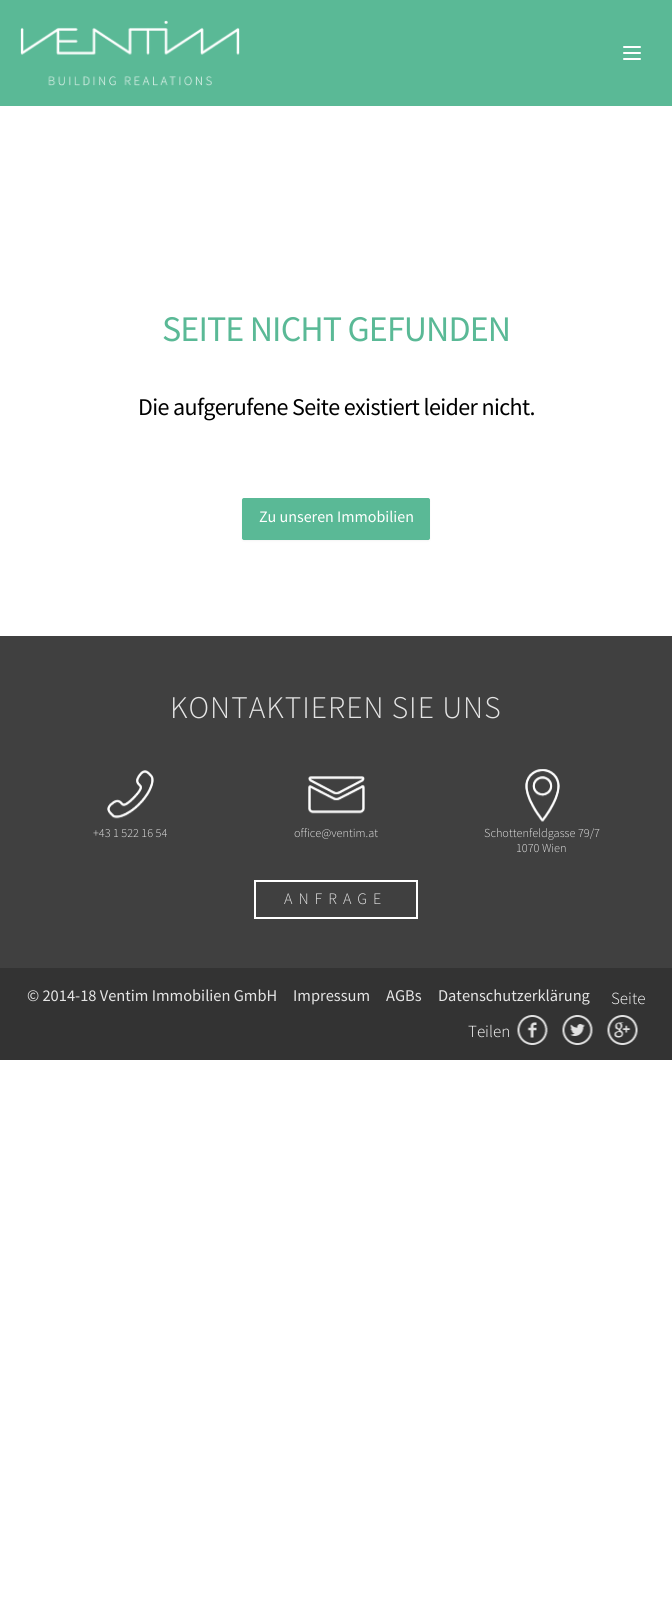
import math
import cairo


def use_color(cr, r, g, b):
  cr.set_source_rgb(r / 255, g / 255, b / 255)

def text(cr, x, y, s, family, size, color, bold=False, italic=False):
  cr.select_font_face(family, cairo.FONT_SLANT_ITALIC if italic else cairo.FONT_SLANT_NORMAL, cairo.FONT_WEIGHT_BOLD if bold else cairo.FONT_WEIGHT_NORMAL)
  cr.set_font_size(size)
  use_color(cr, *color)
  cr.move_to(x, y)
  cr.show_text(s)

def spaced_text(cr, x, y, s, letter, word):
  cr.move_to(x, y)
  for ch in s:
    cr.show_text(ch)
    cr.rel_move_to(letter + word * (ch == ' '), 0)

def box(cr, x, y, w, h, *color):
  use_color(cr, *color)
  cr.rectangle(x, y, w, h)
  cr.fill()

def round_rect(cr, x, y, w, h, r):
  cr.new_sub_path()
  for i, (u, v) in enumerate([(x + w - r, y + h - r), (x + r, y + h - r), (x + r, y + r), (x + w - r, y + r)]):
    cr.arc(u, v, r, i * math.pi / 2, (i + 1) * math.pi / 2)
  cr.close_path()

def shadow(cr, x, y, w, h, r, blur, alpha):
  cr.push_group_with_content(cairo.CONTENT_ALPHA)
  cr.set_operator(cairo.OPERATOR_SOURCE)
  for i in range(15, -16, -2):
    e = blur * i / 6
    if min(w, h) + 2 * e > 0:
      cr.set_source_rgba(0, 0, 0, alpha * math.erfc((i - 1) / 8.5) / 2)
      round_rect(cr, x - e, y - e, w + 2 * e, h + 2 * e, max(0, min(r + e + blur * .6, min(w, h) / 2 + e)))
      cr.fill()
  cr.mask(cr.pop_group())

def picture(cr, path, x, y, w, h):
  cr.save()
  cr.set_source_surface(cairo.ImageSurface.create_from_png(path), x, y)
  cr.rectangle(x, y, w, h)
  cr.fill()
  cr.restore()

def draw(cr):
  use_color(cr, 255, 255, 255)
  cr.paint()
  box(cr, 0, 0, 672, 106, 90, 185, 150)
  picture(cr, "img_01.png", 20, 20, 220, 66)
  cr.new_path()
  cr.move_to(624, 47)
  cr.line_to(640, 47)
  cr.move_to(624, 53)
  cr.line_to(640, 53)
  cr.move_to(624, 59)
  cr.line_to(640, 59)
  use_color(cr, 255, 255, 255)
  cr.set_line_cap(cairo.LINE_CAP_ROUND)
  cr.set_line_join(cairo.LINE_JOIN_ROUND)
  cr.stroke()
  use_color(cr, 0, 0, 0)
  shadow(cr, 242, 499, 188, 42, 2, 1, 0.05)
  use_color(cr, 90, 185, 150)
  round_rect(cr, 242.5, 498.5, 187, 41, 1.5)
  cr.fill_preserve()
  cr.set_line_width(1)
  cr.set_line_cap(cairo.LINE_CAP_BUTT)
  cr.set_line_join(cairo.LINE_JOIN_MITER)
  cr.stroke()
  box(cr, 0, 636, 672, 332, 64, 64, 64)
  picture(cr, "img_02.png", 107, 770, 47, 49)
  picture(cr, "img_03.png", 308, 776, 57, 38)
  picture(cr, "img_04.png", 525, 769, 35, 53)
  cr.rectangle(255, 881, 162, 37)
  use_color(cr, 255, 255, 255)
  cr.set_line_width(2)
  cr.stroke()
  box(cr, 0, 968, 672, 92, 51, 51, 51)
  picture(cr, "img_05.png", 517, 1015, 31, 30)
  picture(cr, "img_06.png", 562, 1015, 31, 30)
  picture(cr, "img_07.png", 607, 1015, 31, 30)
  cr.select_font_face("Source Sans Pro")
  cr.set_font_size(36)
  use_color(cr, 90, 185, 150)
  spaced_text(cr, 162, 341, "SEITE NICHT GEFUNDEN", -0.9, 0)
  cr.set_font_size(24)
  use_color(cr, 0, 0, 0)
  spaced_text(cr, 138, 415, "Die aufgerufene Seite existiert leider nicht.", -0.6, 0)
  text(cr, 259, 522, "Zu unseren Immobilien", "Source Sans Pro", 16, (255, 255, 255))
  cr.select_font_face("Source Sans Pro Light")
  cr.set_font_size(31.5)
  use_color(cr, 229, 229, 229)
  spaced_text(cr, 170, 718, "KONTAKTIEREN SIE UNS", 1, 0)
  text(cr, 93, 837, "+43 1 522 16 54", "Source Sans Pro Light", 12.25, (229, 229, 229))
  text(cr, 294, 837, "office@ventim.at", "Source Sans Pro Light", 12.25, (229, 229, 229))
  text(cr, 484, 837, "Schottenfeldgasse 79/7", "Source Sans Pro Light", 12.25, (229, 229, 229))
  text(cr, 516, 852, "1070 Wien", "Source Sans Pro Light", 12.25, (229, 229, 229))
  cr.set_font_size(16)
  spaced_text(cr, 284, 904, "ANFRAGE", 6, 0)
  text(cr, 27, 1001, "© 2014-18 Ventim Immobilien GmbH", "Source Sans Pro", 16.4, (229, 229, 229))
  text(cr, 293, 1001, "Impressum", "Source Sans Pro", 16.4, (229, 229, 229))
  text(cr, 386, 1001, "AGBs", "Source Sans Pro", 16.4, (229, 229, 229))
  text(cr, 438, 1001, "Datenschutzerklärung", "Source Sans Pro", 16.4, (229, 229, 229))
  text(cr, 611, 1004, "Seite", "Source Sans Pro Light", 17, (255, 255, 255))
  text(cr, 468, 1037, "Teilen", "Source Sans Pro Light", 17, (255, 255, 255))


surface = cairo.ImageSurface(cairo.FORMAT_RGB24, 672, 1624)
cr = cairo.Context(surface)
options = cairo.FontOptions()
options.set_hint_metrics(cairo.HINT_METRICS_OFF)
options.set_hint_style(cairo.HINT_STYLE_NONE)
cr.set_font_options(options)
cr.set_miter_limit(4)
draw(cr)
surface.write_to_png("out.png")
